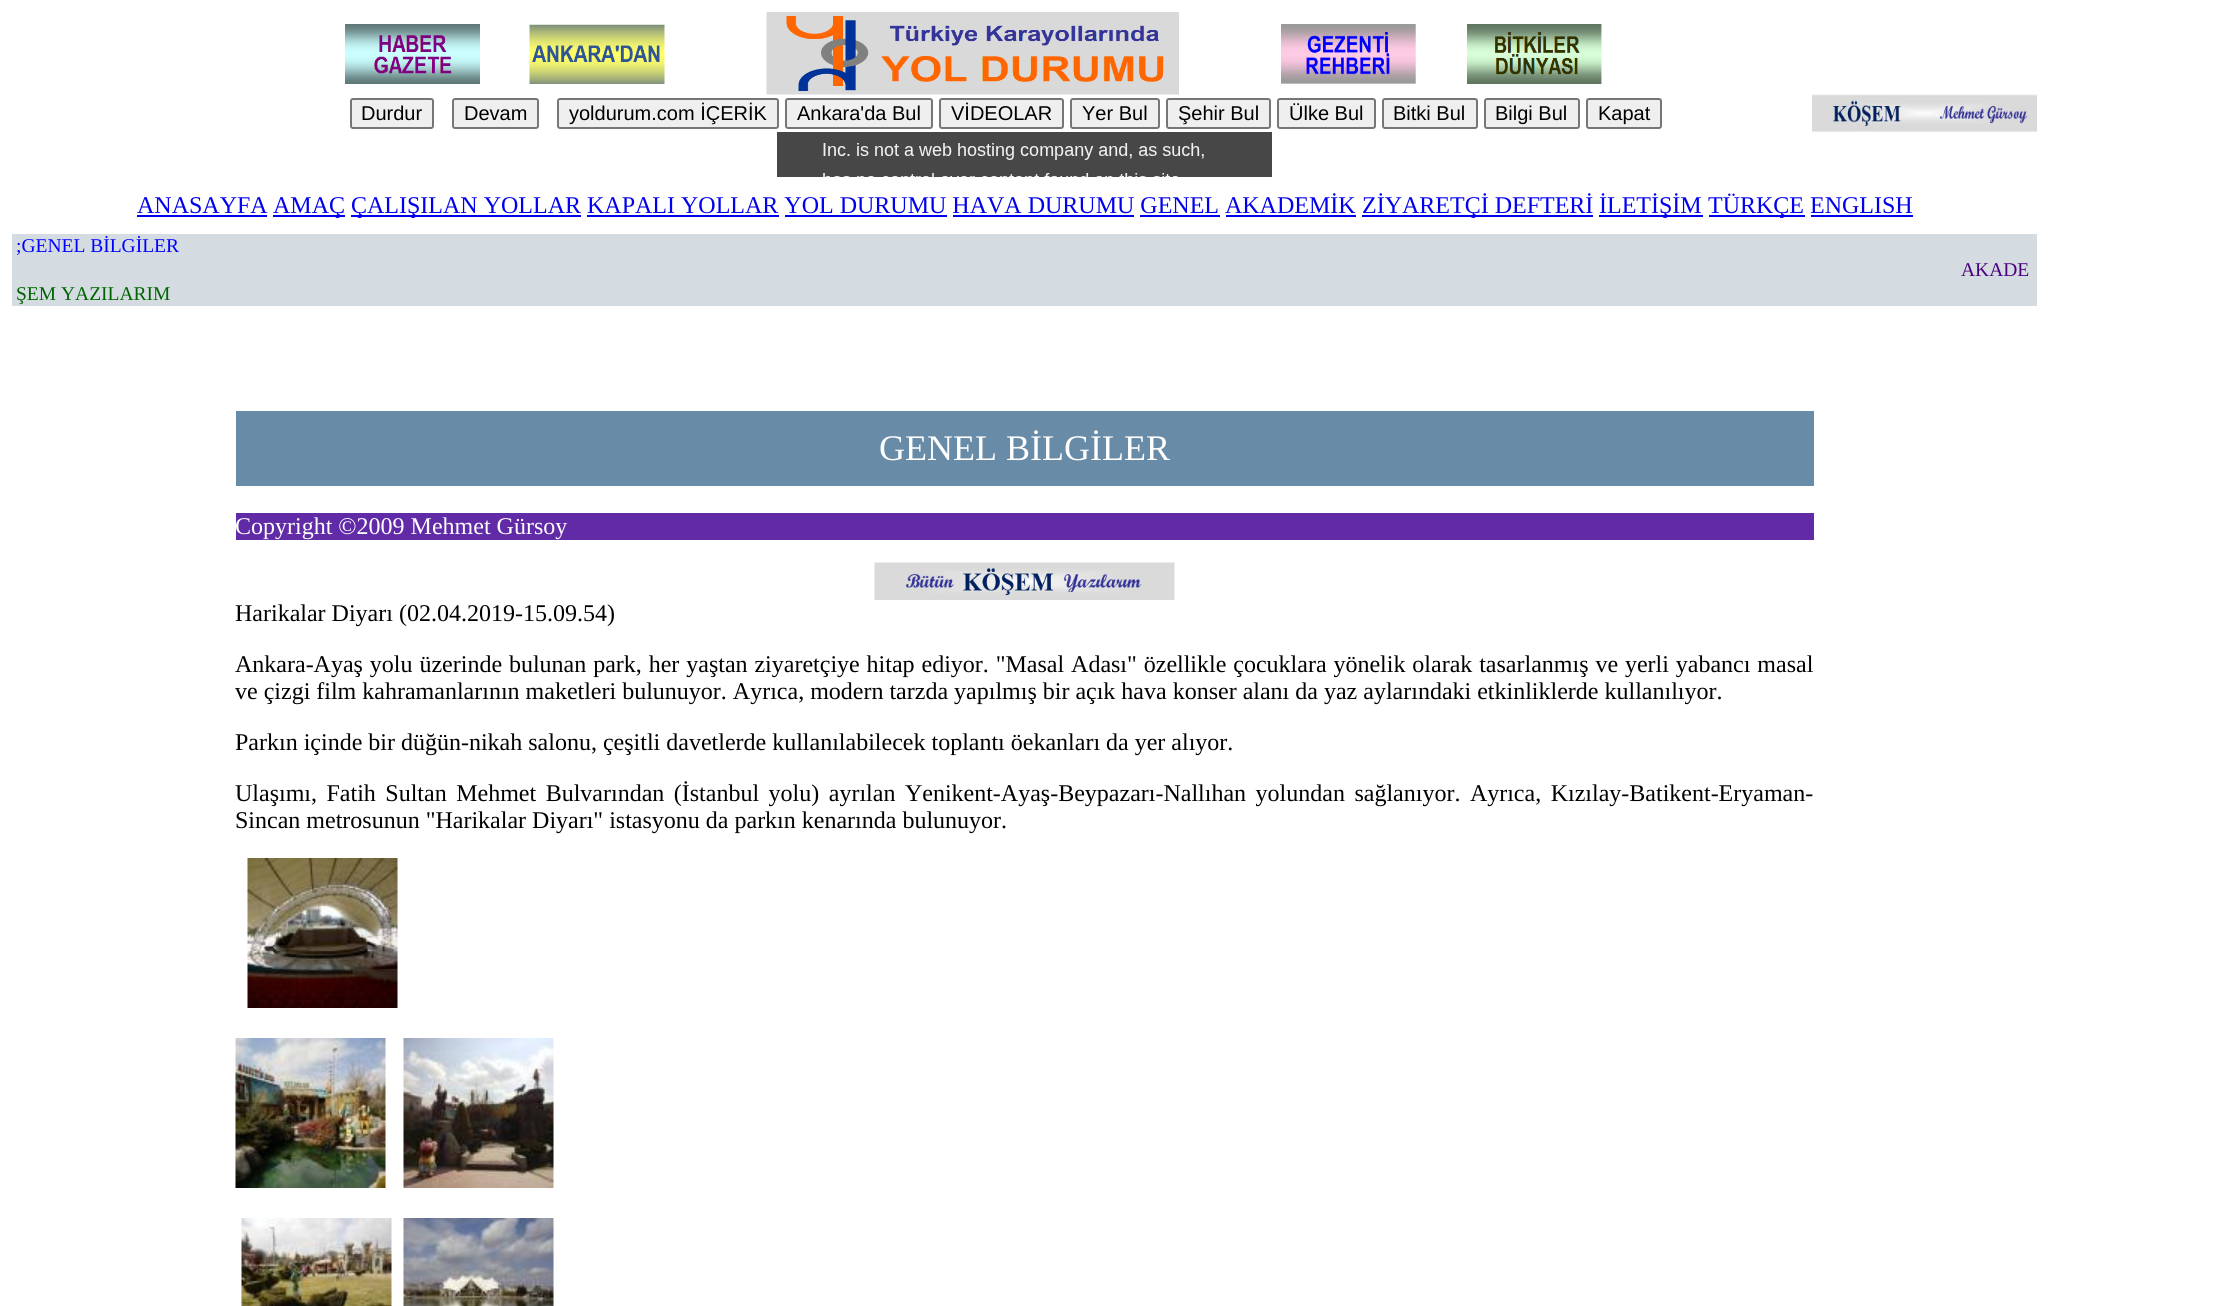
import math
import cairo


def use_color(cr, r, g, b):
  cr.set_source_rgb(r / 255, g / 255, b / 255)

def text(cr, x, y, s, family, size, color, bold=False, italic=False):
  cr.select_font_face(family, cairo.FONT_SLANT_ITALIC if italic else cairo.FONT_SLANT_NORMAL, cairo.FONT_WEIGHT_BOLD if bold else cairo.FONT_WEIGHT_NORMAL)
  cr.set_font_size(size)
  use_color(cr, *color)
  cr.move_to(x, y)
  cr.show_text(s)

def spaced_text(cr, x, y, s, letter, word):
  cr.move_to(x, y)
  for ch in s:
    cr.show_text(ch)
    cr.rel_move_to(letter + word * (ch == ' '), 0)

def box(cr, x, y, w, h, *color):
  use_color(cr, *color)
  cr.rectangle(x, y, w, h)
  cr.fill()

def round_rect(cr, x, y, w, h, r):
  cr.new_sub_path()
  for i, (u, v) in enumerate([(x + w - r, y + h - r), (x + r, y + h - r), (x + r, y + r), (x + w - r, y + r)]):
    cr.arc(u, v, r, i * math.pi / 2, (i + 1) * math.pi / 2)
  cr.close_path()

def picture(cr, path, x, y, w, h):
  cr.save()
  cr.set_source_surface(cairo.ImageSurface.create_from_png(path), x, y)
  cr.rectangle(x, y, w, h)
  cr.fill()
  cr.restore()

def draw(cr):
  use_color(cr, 255, 255, 255)
  cr.paint()
  picture(cr, "img_01.png", 345, 24, 135, 60)
  picture(cr, "img_02.png", 529, 24, 136, 60)
  picture(cr, "img_03.png", 766, 12, 413, 83)
  picture(cr, "img_04.png", 1281, 24, 135, 60)
  picture(cr, "img_05.png", 1467, 24, 135, 60)
  use_color(cr, 239, 239, 239)
  round_rect(cr, 351, 99, 82, 29, 2)
  cr.fill_preserve()
  use_color(cr, 118, 118, 118)
  cr.stroke()
  use_color(cr, 239, 239, 239)
  round_rect(cr, 453, 99, 85, 29, 2)
  cr.fill_preserve()
  use_color(cr, 118, 118, 118)
  cr.stroke()
  use_color(cr, 239, 239, 239)
  round_rect(cr, 558, 99, 220, 29, 2)
  cr.fill_preserve()
  use_color(cr, 118, 118, 118)
  cr.stroke()
  use_color(cr, 239, 239, 239)
  round_rect(cr, 786, 99, 146, 29, 2)
  cr.fill_preserve()
  use_color(cr, 118, 118, 118)
  cr.stroke()
  use_color(cr, 239, 239, 239)
  round_rect(cr, 940, 99, 123, 29, 2)
  cr.fill_preserve()
  use_color(cr, 118, 118, 118)
  cr.stroke()
  use_color(cr, 239, 239, 239)
  round_rect(cr, 1071, 99, 88, 29, 2)
  cr.fill_preserve()
  use_color(cr, 118, 118, 118)
  cr.stroke()
  use_color(cr, 239, 239, 239)
  round_rect(cr, 1167, 99, 103, 29, 2)
  cr.fill_preserve()
  use_color(cr, 118, 118, 118)
  cr.stroke()
  use_color(cr, 239, 239, 239)
  round_rect(cr, 1278, 99, 97, 29, 2)
  cr.fill_preserve()
  use_color(cr, 118, 118, 118)
  cr.stroke()
  use_color(cr, 239, 239, 239)
  round_rect(cr, 1383, 99, 94, 29, 2)
  cr.fill_preserve()
  use_color(cr, 118, 118, 118)
  cr.stroke()
  use_color(cr, 239, 239, 239)
  round_rect(cr, 1485, 99, 94, 29, 2)
  cr.fill_preserve()
  use_color(cr, 118, 118, 118)
  cr.stroke()
  use_color(cr, 239, 239, 239)
  round_rect(cr, 1587, 99, 74, 29, 2)
  cr.fill_preserve()
  use_color(cr, 118, 118, 118)
  cr.stroke()
  picture(cr, "img_06.png", 1812, 94, 225, 38)
  picture(cr, "img_07.png", 777, 132, 495, 45)
  box(cr, 137, 215, 130, 2, 0, 0, 238)
  box(cr, 273, 215, 72, 2, 0, 0, 238)
  box(cr, 351, 215, 230, 2, 0, 0, 238)
  box(cr, 1362, 215, 231, 2, 0, 0, 238)
  box(cr, 1599, 215, 104, 2, 0, 0, 238)
  box(cr, 1709, 215, 96, 2, 0, 0, 238)
  box(cr, 587, 215, 192, 2, 0, 0, 238)
  box(cr, 785, 215, 162, 2, 0, 0, 238)
  box(cr, 953, 215, 181, 2, 0, 0, 238)
  box(cr, 1140, 215, 80, 2, 0, 0, 238)
  box(cr, 1226, 215, 130, 2, 0, 0, 238)
  box(cr, 1811, 215, 102, 2, 0, 0, 238)
  box(cr, 12, 234, 2025, 72, 213, 220, 225)
  box(cr, 236, 411, 1578, 75, 104, 139, 168)
  box(cr, 236, 513, 1578, 27, 97, 43, 168)
  picture(cr, "img_08.png", 874, 562, 301, 38)
  picture(cr, "img_09.png", 247, 858, 151, 150)
  picture(cr, "img_10.png", 235, 1038, 151, 150)
  picture(cr, "img_11.png", 403, 1038, 151, 150)
  picture(cr, "img_12.png", 241, 1218, 151, 88)
  picture(cr, "img_13.png", 403, 1218, 151, 88)
  text(cr, 361, 120, "Durdur", "Liberation Sans", 20, (0, 0, 0))
  text(cr, 464, 120, "Devam", "Liberation Sans", 20, (0, 0, 0))
  text(cr, 569, 120, "yoldurum.com İÇERİK", "Liberation Sans", 20, (0, 0, 0))
  text(cr, 797, 120, "Ankara'da Bul", "Liberation Sans", 20, (0, 0, 0))
  text(cr, 951, 120, "VİDEOLAR", "Liberation Sans", 20, (0, 0, 0))
  text(cr, 1082, 120, "Yer Bul", "Liberation Sans", 20, (0, 0, 0))
  text(cr, 1178, 120, "Şehir Bul", "Liberation Sans", 20, (0, 0, 0))
  text(cr, 1289, 120, "Ülke Bul", "Liberation Sans", 20, (0, 0, 0))
  text(cr, 1393, 120, "Bitki Bul", "Liberation Sans", 20, (0, 0, 0))
  text(cr, 1495, 120, "Bilgi Bul", "Liberation Sans", 20, (0, 0, 0))
  text(cr, 1598, 120, "Kapat", "Liberation Sans", 20, (0, 0, 0))
  text(cr, 137, 213, "ANASAYFA", "Liberation Serif", 24, (0, 0, 238))
  text(cr, 273, 213, "AMAÇ", "Liberation Serif", 24, (0, 0, 238))
  text(cr, 351, 213, "ÇALIŞILAN YOLLAR KAPALI YOLLAR YOL DURUMU HAVA DURUMU GENEL AKADEMİK", "Liberation Serif", 24, (0, 0, 238))
  text(cr, 1362, 213, "ZİYARETÇİ DEFTERİ", "Liberation Serif", 24, (0, 0, 238))
  text(cr, 1599, 213, "İLETİŞİM", "Liberation Serif", 24, (0, 0, 238))
  text(cr, 1708, 213, "TÜRKÇE ENGLISH", "Liberation Serif", 24, (0, 0, 238))
  text(cr, 16, 252, ";GENEL BİLGİLER", "Liberation Serif", 19.5, (0, 0, 255))
  text(cr, 1961, 276, "AKADE", "Liberation Serif", 19.5, (75, 0, 130))
  text(cr, 16, 300, "ŞEM YAZILARIM", "Liberation Serif", 19.5, (0, 100, 0))
  text(cr, 879, 460, "GENEL BİLGİLER", "Liberation Serif", 36, (255, 255, 255))
  text(cr, 235, 534, "Copyright ©2009 Mehmet Gürsoy", "Liberation Serif", 24, (255, 255, 255))
  text(cr, 235, 621, "Harikalar Diyarı (02.04.2019-15.09.54)", "Liberation Serif", 24, (0, 0, 0))
  spaced_text(cr, 235, 672, "Ankara-Ayaş yolu üzerinde bulunan park, her yaştan ziyaretçiye hitap ediyor. \"Masal Adası\" özellikle çocuklara yönelik olarak tasarlanmış ve yerli yabancı masal", 0, 0.9)
  text(cr, 235, 699, "ve çizgi film kahramanlarının maketleri bulunuyor. Ayrıca, modern tarzda yapılmış bir açık hava konser alanı da yaz aylarındaki etkinliklerde kullanılıyor.", "Liberation Serif", 24, (0, 0, 0))
  text(cr, 235, 750, "Parkın içinde bir düğün-nikah salonu, çeşitli davetlerde kullanılabilecek toplantı öekanları da yer alıyor.", "Liberation Serif", 24, (0, 0, 0))
  spaced_text(cr, 235, 801, "Ulaşımı, Fatih Sultan Mehmet Bulvarından (İstanbul yolu) ayrılan Yenikent-Ayaş-Beypazarı-Nallıhan yolundan sağlanıyor. Ayrıca, Kızılay-Batikent-Eryaman-", 0, 3.5)
  text(cr, 235, 828, "Sincan metrosunun \"Harikalar Diyarı\" istasyonu da parkın kenarında bulunuyor.", "Liberation Serif", 24, (0, 0, 0))


surface = cairo.ImageSurface(cairo.FORMAT_RGB24, 2230, 1306)
cr = cairo.Context(surface)
options = cairo.FontOptions()
options.set_hint_metrics(cairo.HINT_METRICS_OFF)
options.set_hint_style(cairo.HINT_STYLE_NONE)
cr.set_font_options(options)
cr.set_miter_limit(4)
draw(cr)
surface.write_to_png("out.png")
